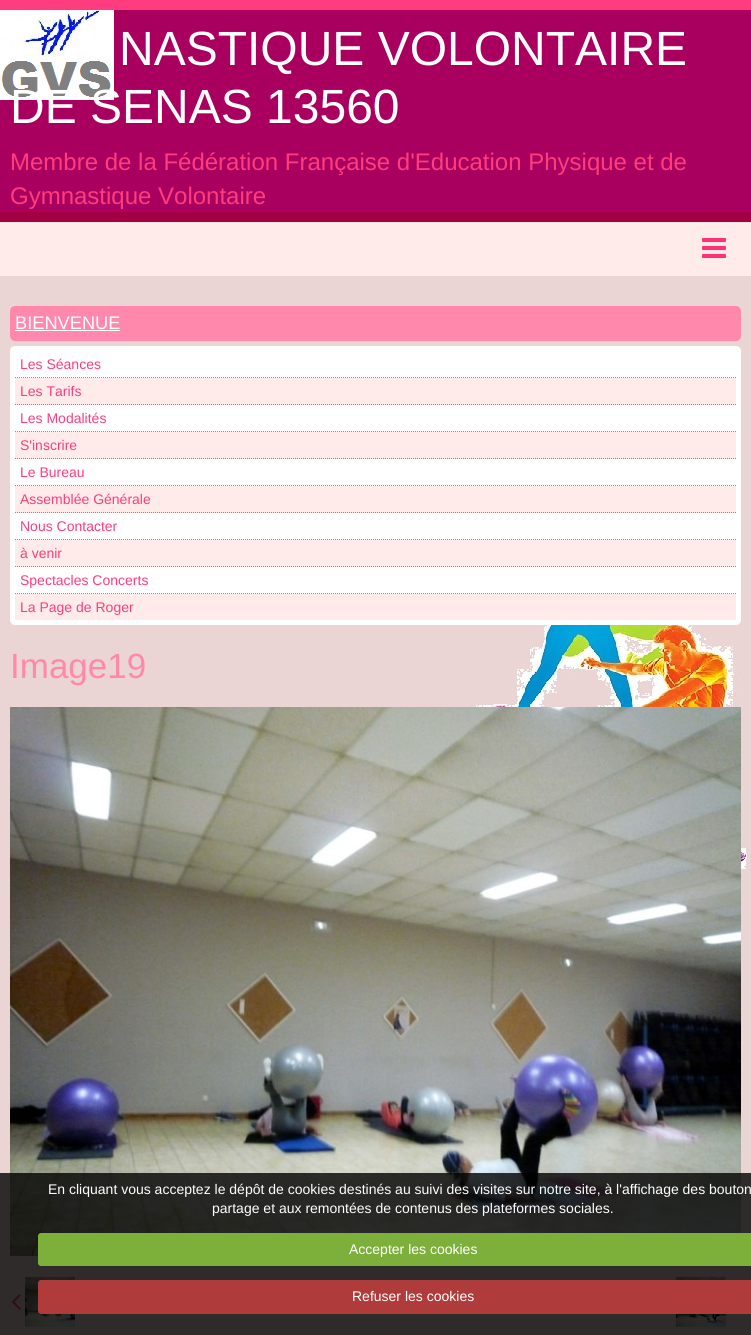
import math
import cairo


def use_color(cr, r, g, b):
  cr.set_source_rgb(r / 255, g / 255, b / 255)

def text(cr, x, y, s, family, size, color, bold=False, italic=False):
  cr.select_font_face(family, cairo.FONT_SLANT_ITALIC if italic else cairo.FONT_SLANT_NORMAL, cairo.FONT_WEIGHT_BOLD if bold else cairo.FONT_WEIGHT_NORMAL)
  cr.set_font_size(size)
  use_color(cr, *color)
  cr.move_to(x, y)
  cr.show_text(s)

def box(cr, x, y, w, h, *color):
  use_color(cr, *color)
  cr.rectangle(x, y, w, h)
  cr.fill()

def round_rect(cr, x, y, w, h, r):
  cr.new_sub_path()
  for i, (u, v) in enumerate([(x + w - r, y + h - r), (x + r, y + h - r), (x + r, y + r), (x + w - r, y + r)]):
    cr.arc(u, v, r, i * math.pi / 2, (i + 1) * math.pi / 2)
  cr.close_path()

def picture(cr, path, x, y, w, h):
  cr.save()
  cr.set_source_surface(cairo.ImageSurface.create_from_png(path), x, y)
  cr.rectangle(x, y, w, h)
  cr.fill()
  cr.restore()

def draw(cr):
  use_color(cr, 235, 213, 212)
  cr.paint()
  picture(cr, "img_01.png", 436, 467, 315, 402)
  box(cr, 0, 10, 751, 202, 169, 0, 96)
  picture(cr, "img_02.png", 0, 10, 114, 90)
  box(cr, 0, 0, 751, 10, 255, 60, 125)
  box(cr, 0, 212, 751, 10, 163, 0, 68)
  box(cr, 0, 222, 751, 54, 254, 235, 234)
  picture(cr, "img_03.png", 702, 238, 24, 20)
  use_color(cr, 255, 136, 172)
  round_rect(cr, 10, 306, 731, 35, 5)
  cr.fill()
  box(cr, 15, 330, 105, 1, 255, 255, 255)
  round_rect(cr, 10, 346, 731, 279, 5)
  cr.fill()
  cr.new_path()
  cr.move_to(15, 377.5)
  cr.line_to(736, 377.5)
  use_color(cr, 207, 107, 140)
  cr.set_line_width(1)
  cr.set_dash([1, 1])
  cr.stroke()
  box(cr, 15, 378, 721, 27, 254, 235, 234)
  cr.new_path()
  cr.move_to(15, 404.5)
  cr.line_to(736, 404.5)
  use_color(cr, 207, 107, 140)
  cr.stroke()
  cr.new_path()
  cr.move_to(15, 431.5)
  cr.line_to(736, 431.5)
  cr.stroke()
  box(cr, 15, 432, 721, 27, 254, 235, 234)
  cr.new_path()
  cr.move_to(15, 458.5)
  cr.line_to(736, 458.5)
  use_color(cr, 207, 107, 140)
  cr.stroke()
  cr.new_path()
  cr.move_to(15, 485.5)
  cr.line_to(736, 485.5)
  cr.stroke()
  box(cr, 15, 486, 721, 27, 254, 235, 234)
  cr.new_path()
  cr.move_to(15, 512.5)
  cr.line_to(736, 512.5)
  use_color(cr, 207, 107, 140)
  cr.stroke()
  cr.new_path()
  cr.move_to(15, 539.5)
  cr.line_to(736, 539.5)
  cr.stroke()
  box(cr, 15, 540, 721, 27, 254, 235, 234)
  cr.new_path()
  cr.move_to(15, 566.5)
  cr.line_to(736, 566.5)
  use_color(cr, 207, 107, 140)
  cr.stroke()
  cr.new_path()
  cr.move_to(15, 593.5)
  cr.line_to(736, 593.5)
  cr.stroke()
  box(cr, 15, 594, 721, 26, 254, 235, 234)
  picture(cr, "img_04.png", 10, 707, 731, 549)
  picture(cr, "img_05.png", 11, 1294, 10, 16)
  picture(cr, "img_06.png", 25, 1277, 50, 50)
  picture(cr, "img_07.png", 676, 1277, 50, 50)
  cr.set_source_rgba(0, 0, 0, 0.8)
  cr.rectangle(0, 1173, 751, 162)
  cr.fill()
  use_color(cr, 125, 175, 59)
  round_rect(cr, 38, 1233, 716, 33, 3)
  cr.fill()
  use_color(cr, 175, 59, 59)
  round_rect(cr, 38, 1280, 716, 34, 3)
  cr.fill()
  text(cr, 119, 65, "NASTIQUE VOLONTAIRE", "Liberation Sans", 48, (255, 255, 255))
  text(cr, 10, 123, "DE SENAS 13560", "Liberation Sans", 48, (255, 255, 255))
  text(cr, 10, 170, "Membre de la Fédération Française d'Education Physique et de", "Liberation Sans", 24, (255, 60, 125))
  text(cr, 10, 204, "Gymnastique Volontaire", "Liberation Sans", 24, (255, 60, 125))
  text(cr, 15, 329, "BIENVENUE", "Liberation Sans", 18.25, (255, 255, 255))
  text(cr, 20, 369, "Les Séances", "Liberation Sans", 14, (255, 60, 125))
  text(cr, 20, 396, "Les Tarifs", "Liberation Sans", 14, (255, 60, 125))
  text(cr, 20, 423, "Les Modalités", "Liberation Sans", 14, (255, 60, 125))
  text(cr, 20, 450, "S'inscrire", "Liberation Sans", 14, (255, 60, 125))
  text(cr, 20, 477, "Le Bureau", "Liberation Sans", 14, (255, 60, 125))
  text(cr, 20, 504, "Assemblée Générale", "Liberation Sans", 14, (255, 60, 125))
  text(cr, 20, 531, "Nous Contacter", "Liberation Sans", 14, (255, 60, 125))
  text(cr, 20, 558, "à venir", "Liberation Sans", 14, (255, 60, 125))
  text(cr, 20, 585, "Spectacles Concerts", "Liberation Sans", 14, (255, 60, 125))
  text(cr, 20, 612, "La Page de Roger", "Liberation Sans", 14, (255, 60, 125))
  text(cr, 10, 678, "Image19", "Liberation Sans", 35, (255, 136, 172))
  text(cr, 48, 1194, "En cliquant vous acceptez le dépôt de cookies destinés au suivi des visites sur notre site, à l'affichage des bouton", "Liberation Sans", 14, (255, 255, 255))
  text(cr, 212, 1213, "partage et aux remontées de contenus des plateformes sociales.", "Liberation Sans", 14, (255, 255, 255))
  text(cr, 349, 1254, "Accepter les cookies", "Liberation Sans", 14, (255, 255, 255))
  text(cr, 352, 1301, "Refuser les cookies", "Liberation Sans", 14, (255, 255, 255))


surface = cairo.ImageSurface(cairo.FORMAT_RGB24, 751, 1335)
cr = cairo.Context(surface)
options = cairo.FontOptions()
options.set_hint_metrics(cairo.HINT_METRICS_OFF)
options.set_hint_style(cairo.HINT_STYLE_NONE)
cr.set_font_options(options)
cr.set_miter_limit(4)
draw(cr)
surface.write_to_png("out.png")
